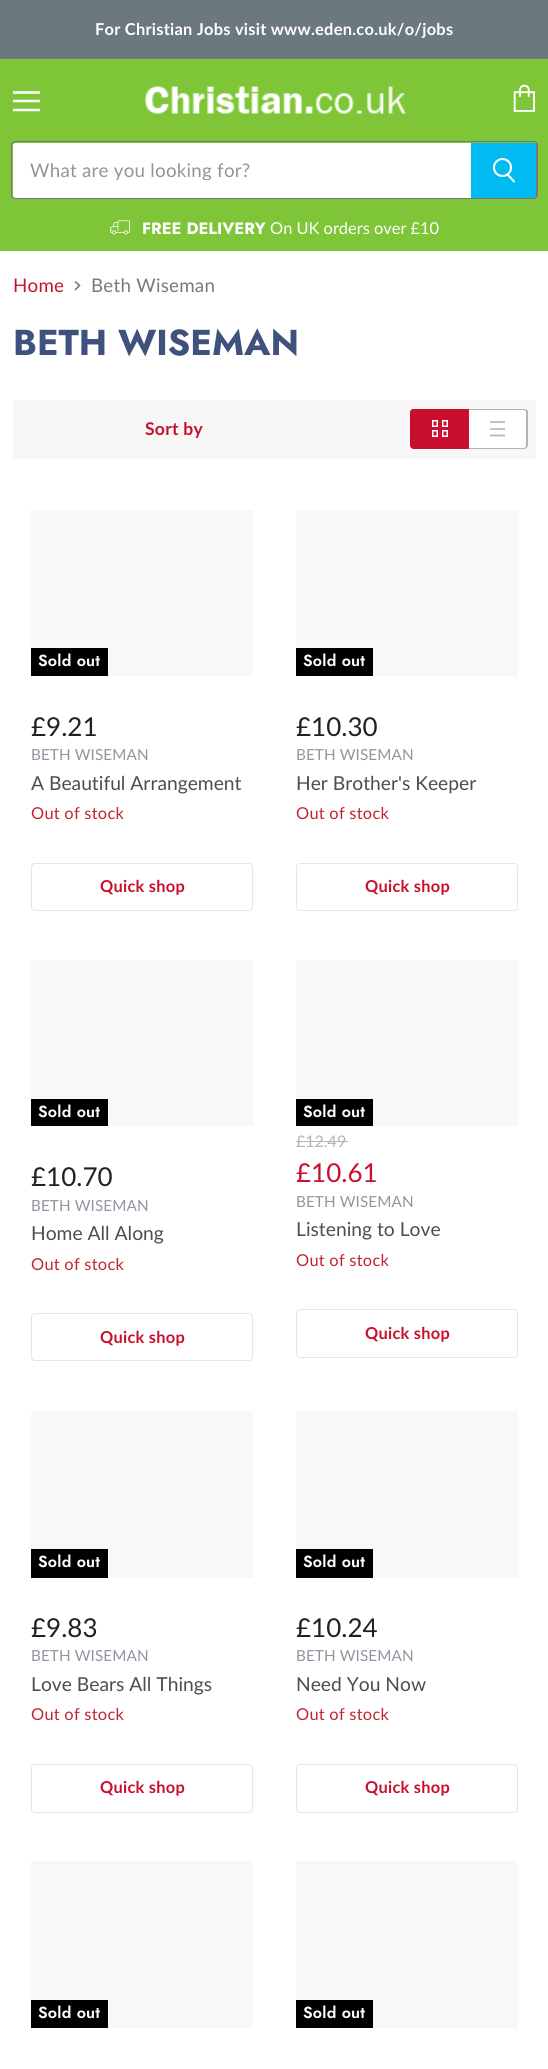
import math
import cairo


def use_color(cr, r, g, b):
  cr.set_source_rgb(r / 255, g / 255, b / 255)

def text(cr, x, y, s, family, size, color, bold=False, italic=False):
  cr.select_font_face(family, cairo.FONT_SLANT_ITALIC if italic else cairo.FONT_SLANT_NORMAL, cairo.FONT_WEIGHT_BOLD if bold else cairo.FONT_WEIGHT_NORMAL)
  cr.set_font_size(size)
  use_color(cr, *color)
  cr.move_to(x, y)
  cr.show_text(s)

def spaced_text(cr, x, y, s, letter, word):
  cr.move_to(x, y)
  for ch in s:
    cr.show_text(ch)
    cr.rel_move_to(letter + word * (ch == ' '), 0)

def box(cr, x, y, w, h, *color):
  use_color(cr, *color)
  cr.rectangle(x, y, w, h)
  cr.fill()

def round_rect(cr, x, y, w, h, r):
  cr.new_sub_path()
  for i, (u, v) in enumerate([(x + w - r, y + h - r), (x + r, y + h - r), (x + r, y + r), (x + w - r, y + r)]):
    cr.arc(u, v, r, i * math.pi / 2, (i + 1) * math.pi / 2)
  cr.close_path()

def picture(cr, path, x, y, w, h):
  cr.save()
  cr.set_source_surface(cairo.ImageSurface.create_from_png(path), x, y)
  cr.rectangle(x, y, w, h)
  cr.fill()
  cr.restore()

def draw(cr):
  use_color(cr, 255, 255, 255)
  cr.paint()
  box(cr, 0, 0, 548, 59, 107, 120, 126)
  box(cr, 0, 59, 548, 192, 126, 197, 55)
  box(cr, 13, 91, 27, 3, 234, 245, 222)
  cr.save()
  cr.rectangle(13, 90, 27, 23)
  cr.clip()
  cr.new_path()
  cr.move_to(39, 101)
  cr.line_to(14, 101)
  cr.move_to(39, 110)
  cr.line_to(14, 110)
  use_color(cr, 255, 255, 255)
  cr.set_line_width(2.5)
  cr.set_line_cap(cairo.LINE_CAP_SQUARE)
  cr.set_line_join(cairo.LINE_JOIN_ROUND)
  cr.stroke()
  cr.restore()
  picture(cr, "img_01.png", 513, 84, 22, 28)
  picture(cr, "img_02.png", 145, 86, 262, 28)
  use_color(cr, 255, 255, 255)
  cr.new_path()
  cr.move_to(15.5, 143)
  cr.line_to(471, 143)
  cr.line_to(471, 198)
  cr.line_to(15.5, 198)
  cr.curve_to(14, 198, 13, 197, 13, 195.5)
  cr.line_to(13, 145.5)
  cr.curve_to(13, 144, 14, 143, 15.5, 143)
  cr.close_path()
  cr.fill()
  use_color(cr, 119, 119, 119)
  cr.set_fill_rule(cairo.FILL_RULE_EVEN_ODD)
  cr.new_path()
  cr.move_to(15, 141)
  cr.line_to(471, 141)
  cr.line_to(471, 199)
  cr.line_to(15, 199)
  cr.curve_to(13, 199, 11, 197, 11, 195)
  cr.line_to(11, 145)
  cr.curve_to(11, 143, 13, 141, 15, 141)
  cr.close_path()
  cr.move_to(15, 142)
  cr.line_to(471, 142)
  cr.line_to(471, 198)
  cr.line_to(15, 198)
  cr.curve_to(14, 198, 12, 196, 12, 195)
  cr.line_to(12, 145)
  cr.curve_to(12, 144, 14, 142, 15, 142)
  cr.close_path()
  cr.fill()
  use_color(cr, 0, 186, 241)
  cr.new_path()
  cr.move_to(471, 143)
  cr.line_to(533.5, 143)
  cr.curve_to(535, 143, 536, 144, 536, 145.5)
  cr.line_to(536, 195.5)
  cr.curve_to(536, 197, 535, 198, 533.5, 198)
  cr.line_to(471, 198)
  cr.close_path()
  cr.fill()
  use_color(cr, 119, 119, 119)
  cr.new_path()
  cr.move_to(471, 141)
  cr.line_to(534, 141)
  cr.curve_to(536, 141, 538, 143, 538, 145)
  cr.line_to(538, 195)
  cr.curve_to(538, 197, 536, 199, 534, 199)
  cr.line_to(471, 199)
  cr.close_path()
  cr.move_to(471, 142)
  cr.line_to(534, 142)
  cr.curve_to(535, 142, 536, 144, 536, 145)
  cr.line_to(536, 195)
  cr.curve_to(536, 196, 535, 198, 534, 198)
  cr.line_to(471, 198)
  cr.close_path()
  cr.fill()
  cr.new_path()
  cr.move_to(514.5, 182)
  cr.line_to(507.5, 174.5)
  use_color(cr, 255, 255, 255)
  cr.set_line_width(2.1)
  cr.stroke()
  cr.arc(502.5, 167.5, 8.5, 0, 2 * math.pi)
  cr.stroke()
  picture(cr, "img_03.png", 110, 220, 20, 15)
  cr.save()
  cr.set_fill_rule(cairo.FILL_RULE_WINDING)
  cr.new_path()
  cr.move_to(74.5, 290.5)
  cr.line_to(74.5, 280.5)
  cr.line_to(80.5, 280.5)
  cr.line_to(80.5, 290.5)
  cr.close_path()
  cr.clip()
  cr.new_path()
  cr.move_to(75, 290)
  cr.line_to(79.5, 285.5)
  cr.line_to(75, 281.5)
  use_color(cr, 124, 120, 115)
  cr.set_line_width(1.6)
  cr.stroke()
  cr.restore()
  use_color(cr, 247, 247, 247)
  round_rect(cr, 13, 400, 523, 59, 2)
  cr.fill()
  use_color(cr, 200, 16, 46)
  cr.new_path()
  cr.move_to(414, 409)
  cr.line_to(469, 409)
  cr.line_to(469, 449)
  cr.line_to(414, 449)
  cr.curve_to(412, 449, 410, 447, 410, 445)
  cr.line_to(410, 413)
  cr.curve_to(410, 411, 412, 409, 414, 409)
  cr.close_path()
  cr.fill()
  cr.new_path()
  cr.move_to(414, 409)
  cr.line_to(469, 409)
  cr.line_to(469, 449)
  cr.line_to(414, 449)
  cr.curve_to(412, 449, 410, 447, 410, 445)
  cr.line_to(410, 412)
  cr.curve_to(410, 410, 412, 409, 414, 409)
  cr.close_path()
  cr.move_to(414, 410)
  cr.line_to(469, 410)
  cr.line_to(469, 448)
  cr.line_to(414, 448)
  cr.curve_to(412, 448, 411, 446, 411, 445)
  cr.line_to(411, 412)
  cr.curve_to(411, 411, 412, 410, 414, 410)
  cr.close_path()
  cr.fill()
  picture(cr, "img_04.png", 432, 420, 16, 17)
  use_color(cr, 255, 255, 255)
  cr.new_path()
  cr.move_to(469, 409)
  cr.line_to(524, 409)
  cr.curve_to(526, 409, 528, 411, 528, 413)
  cr.line_to(528, 445)
  cr.curve_to(528, 447, 526, 449, 524, 449)
  cr.line_to(469, 449)
  cr.close_path()
  cr.fill()
  use_color(cr, 179, 179, 179)
  cr.new_path()
  cr.move_to(469, 409)
  cr.line_to(524, 409)
  cr.curve_to(526, 409, 528, 410, 528, 412)
  cr.line_to(528, 445)
  cr.curve_to(528, 447, 526, 449, 524, 449)
  cr.line_to(469, 449)
  cr.close_path()
  cr.move_to(469, 410)
  cr.line_to(524, 410)
  cr.curve_to(525, 410, 526, 411, 526, 412)
  cr.line_to(526, 445)
  cr.curve_to(526, 446, 525, 448, 524, 448)
  cr.line_to(469, 448)
  cr.close_path()
  cr.fill()
  box(cr, 490, 421, 15, 2, 194, 194, 194)
  box(cr, 490, 428, 15, 2, 194, 194, 194)
  cr.new_path()
  cr.move_to(490, 435.5)
  cr.line_to(505, 435.5)
  use_color(cr, 179, 179, 179)
  cr.set_line_width(1.6)
  cr.set_line_join(cairo.LINE_JOIN_ROUND)
  cr.stroke()
  box(cr, 31, 510, 222, 166, 248, 248, 248)
  box(cr, 31, 648, 77, 28, 0, 0, 0)
  round_rect(cr, 31.5, 863.5, 221, 47, 3.5)
  use_color(cr, 230, 230, 230)
  cr.set_line_width(1)
  cr.set_line_join(cairo.LINE_JOIN_MITER)
  cr.stroke()
  box(cr, 296, 510, 222, 166, 248, 248, 248)
  box(cr, 296, 648, 77, 28, 0, 0, 0)
  round_rect(cr, 296.5, 863.5, 221, 47, 3.5)
  use_color(cr, 230, 230, 230)
  cr.stroke()
  box(cr, 31, 960, 222, 166, 248, 248, 248)
  box(cr, 31, 1099, 77, 27, 0, 0, 0)
  round_rect(cr, 31.5, 1313.5, 221, 47, 3.5)
  use_color(cr, 230, 230, 230)
  cr.stroke()
  box(cr, 296, 960, 222, 166, 248, 248, 248)
  box(cr, 296, 1099, 77, 27, 0, 0, 0)
  box(cr, 296, 1141, 52, 1, 180, 180, 180)
  round_rect(cr, 296.5, 1309.5, 221, 48, 3.5)
  use_color(cr, 230, 230, 230)
  cr.stroke()
  box(cr, 31, 1411, 222, 167, 248, 248, 248)
  box(cr, 31, 1549, 77, 29, 0, 0, 0)
  round_rect(cr, 31.5, 1764.5, 221, 48, 3.5)
  use_color(cr, 230, 230, 230)
  cr.stroke()
  box(cr, 296, 1411, 222, 167, 248, 248, 248)
  box(cr, 296, 1549, 77, 29, 0, 0, 0)
  round_rect(cr, 296.5, 1764.5, 221, 48, 3.5)
  use_color(cr, 230, 230, 230)
  cr.stroke()
  box(cr, 31, 1861, 222, 167, 248, 248, 248)
  box(cr, 31, 2000, 77, 28, 0, 0, 0)
  box(cr, 296, 1861, 222, 167, 248, 248, 248)
  box(cr, 296, 2000, 77, 28, 0, 0, 0)
  cr.select_font_face("Lato", cairo.FONT_SLANT_NORMAL, cairo.FONT_WEIGHT_BOLD)
  cr.set_font_size(16.4)
  use_color(cr, 255, 255, 255)
  spaced_text(cr, 95, 35, "For Christian Jobs visit www.eden.co.uk/o/jobs", 0.25, 0)
  cr.save()
  cr.set_fill_rule(cairo.FILL_RULE_WINDING)
  cr.rectangle(30, 158, 424, 22)
  cr.clip()
  cr.select_font_face("Lato")
  cr.set_font_size(18.75)
  use_color(cr, 148, 148, 148)
  spaced_text(cr, 30, 177, "What are you looking for?", 0.25, 0)
  cr.restore()
  text(cr, 142, 234, "FREE DELIVERY", "Jost", 16.4, (255, 255, 255), bold=True)
  text(cr, 270, 234, "On UK orders over £10", "Lato", 16.4, (255, 255, 255))
  cr.set_font_size(18.75)
  use_color(cr, 200, 16, 46)
  spaced_text(cr, 13, 292, "Home", 0.25, 0)
  use_color(cr, 124, 120, 115)
  spaced_text(cr, 91, 292, "Beth Wiseman", 0.25, 0)
  text(cr, 13, 355, "BETH WISEMAN", "Jost", 36, (63, 81, 125), bold=True)
  cr.select_font_face("Lato", cairo.FONT_SLANT_NORMAL, cairo.FONT_WEIGHT_BOLD)
  cr.set_font_size(17.5)
  use_color(cr, 200, 16, 46)
  spaced_text(cr, 145, 435, "Sort by", 0.25, 0)
  cr.select_font_face("Jost SemiBold")
  cr.set_font_size(16)
  use_color(cr, 255, 255, 255)
  spaced_text(cr, 38, 666, "Sold out", 0.25, 0)
  text(cr, 31, 736, "£9.21", "Lato", 26, (33, 33, 33))
  cr.set_font_size(15.25)
  use_color(cr, 144, 149, 161)
  spaced_text(cr, 31, 760, "BETH WISEMAN", 0.1, 0)
  text(cr, 31, 790, "A Beautiful Arrangement", "Lato", 19.25, (77, 77, 77))
  cr.set_font_size(16.4)
  use_color(cr, 191, 38, 47)
  spaced_text(cr, 31, 819, "Out of stock", 0.25, 0)
  cr.select_font_face("Lato", cairo.FONT_SLANT_NORMAL, cairo.FONT_WEIGHT_BOLD)
  use_color(cr, 200, 16, 46)
  spaced_text(cr, 100, 892, "Quick shop", 0.25, 0)
  cr.select_font_face("Jost SemiBold")
  cr.set_font_size(16)
  use_color(cr, 255, 255, 255)
  spaced_text(cr, 303, 666, "Sold out", 0.25, 0)
  text(cr, 296, 736, "£10.30", "Lato", 26, (33, 33, 33))
  cr.set_font_size(15.25)
  use_color(cr, 144, 149, 161)
  spaced_text(cr, 296, 760, "BETH WISEMAN", 0.1, 0)
  text(cr, 296, 790, "Her Brother's Keeper", "Lato", 19.25, (77, 77, 77))
  cr.set_font_size(16.4)
  use_color(cr, 191, 38, 47)
  spaced_text(cr, 296, 819, "Out of stock", 0.25, 0)
  cr.select_font_face("Lato", cairo.FONT_SLANT_NORMAL, cairo.FONT_WEIGHT_BOLD)
  use_color(cr, 200, 16, 46)
  spaced_text(cr, 365, 892, "Quick shop", 0.25, 0)
  cr.select_font_face("Jost SemiBold")
  cr.set_font_size(16)
  use_color(cr, 255, 255, 255)
  spaced_text(cr, 38, 1117, "Sold out", 0.25, 0)
  text(cr, 31, 1186, "£10.70", "Lato", 26, (33, 33, 33))
  cr.set_font_size(15.25)
  use_color(cr, 144, 149, 161)
  spaced_text(cr, 31, 1211, "BETH WISEMAN", 0.1, 0)
  text(cr, 31, 1240, "Home All Along", "Lato", 19.25, (77, 77, 77))
  cr.set_font_size(16.4)
  use_color(cr, 191, 38, 47)
  spaced_text(cr, 31, 1270, "Out of stock", 0.25, 0)
  cr.select_font_face("Lato", cairo.FONT_SLANT_NORMAL, cairo.FONT_WEIGHT_BOLD)
  use_color(cr, 200, 16, 46)
  spaced_text(cr, 100, 1343, "Quick shop", 0.25, 0)
  cr.select_font_face("Jost SemiBold")
  cr.set_font_size(16)
  use_color(cr, 255, 255, 255)
  spaced_text(cr, 303, 1117, "Sold out", 0.25, 0)
  text(cr, 296, 1147, "£12.49", "Lato", 16, (180, 180, 180))
  text(cr, 296, 1182, "£10.61", "Lato", 26, (200, 16, 46))
  cr.set_font_size(15.25)
  use_color(cr, 144, 149, 161)
  spaced_text(cr, 296, 1207, "BETH WISEMAN", 0.1, 0)
  text(cr, 296, 1236, "Listening to Love", "Lato", 19.25, (77, 77, 77))
  cr.set_font_size(16.4)
  use_color(cr, 191, 38, 47)
  spaced_text(cr, 296, 1266, "Out of stock", 0.25, 0)
  cr.select_font_face("Lato", cairo.FONT_SLANT_NORMAL, cairo.FONT_WEIGHT_BOLD)
  use_color(cr, 200, 16, 46)
  spaced_text(cr, 365, 1339, "Quick shop", 0.25, 0)
  cr.select_font_face("Jost SemiBold")
  cr.set_font_size(16)
  use_color(cr, 255, 255, 255)
  spaced_text(cr, 38, 1567, "Sold out", 0.25, 0)
  text(cr, 31, 1637, "£9.83", "Lato", 26, (33, 33, 33))
  cr.set_font_size(15.25)
  use_color(cr, 144, 149, 161)
  spaced_text(cr, 31, 1661, "BETH WISEMAN", 0.1, 0)
  text(cr, 31, 1691, "Love Bears All Things", "Lato", 19.25, (77, 77, 77))
  cr.set_font_size(16.4)
  use_color(cr, 191, 38, 47)
  spaced_text(cr, 31, 1720, "Out of stock", 0.25, 0)
  cr.select_font_face("Lato", cairo.FONT_SLANT_NORMAL, cairo.FONT_WEIGHT_BOLD)
  use_color(cr, 200, 16, 46)
  spaced_text(cr, 100, 1793, "Quick shop", 0.25, 0)
  cr.select_font_face("Jost SemiBold")
  cr.set_font_size(16)
  use_color(cr, 255, 255, 255)
  spaced_text(cr, 303, 1567, "Sold out", 0.25, 0)
  text(cr, 296, 1637, "£10.24", "Lato", 26, (33, 33, 33))
  cr.set_font_size(15.25)
  use_color(cr, 144, 149, 161)
  spaced_text(cr, 296, 1661, "BETH WISEMAN", 0.1, 0)
  text(cr, 296, 1691, "Need You Now", "Lato", 19.25, (77, 77, 77))
  cr.set_font_size(16.4)
  use_color(cr, 191, 38, 47)
  spaced_text(cr, 296, 1720, "Out of stock", 0.25, 0)
  cr.select_font_face("Lato", cairo.FONT_SLANT_NORMAL, cairo.FONT_WEIGHT_BOLD)
  use_color(cr, 200, 16, 46)
  spaced_text(cr, 365, 1793, "Quick shop", 0.25, 0)
  cr.select_font_face("Jost SemiBold")
  cr.set_font_size(16)
  use_color(cr, 255, 255, 255)
  spaced_text(cr, 38, 2018, "Sold out", 0.25, 0)
  spaced_text(cr, 303, 2018, "Sold out", 0.25, 0)


surface = cairo.ImageSurface(cairo.FORMAT_RGB24, 548, 2069)
cr = cairo.Context(surface)
options = cairo.FontOptions()
options.set_hint_metrics(cairo.HINT_METRICS_OFF)
options.set_hint_style(cairo.HINT_STYLE_NONE)
cr.set_font_options(options)
cr.set_miter_limit(4)
draw(cr)
surface.write_to_png("out.png")
